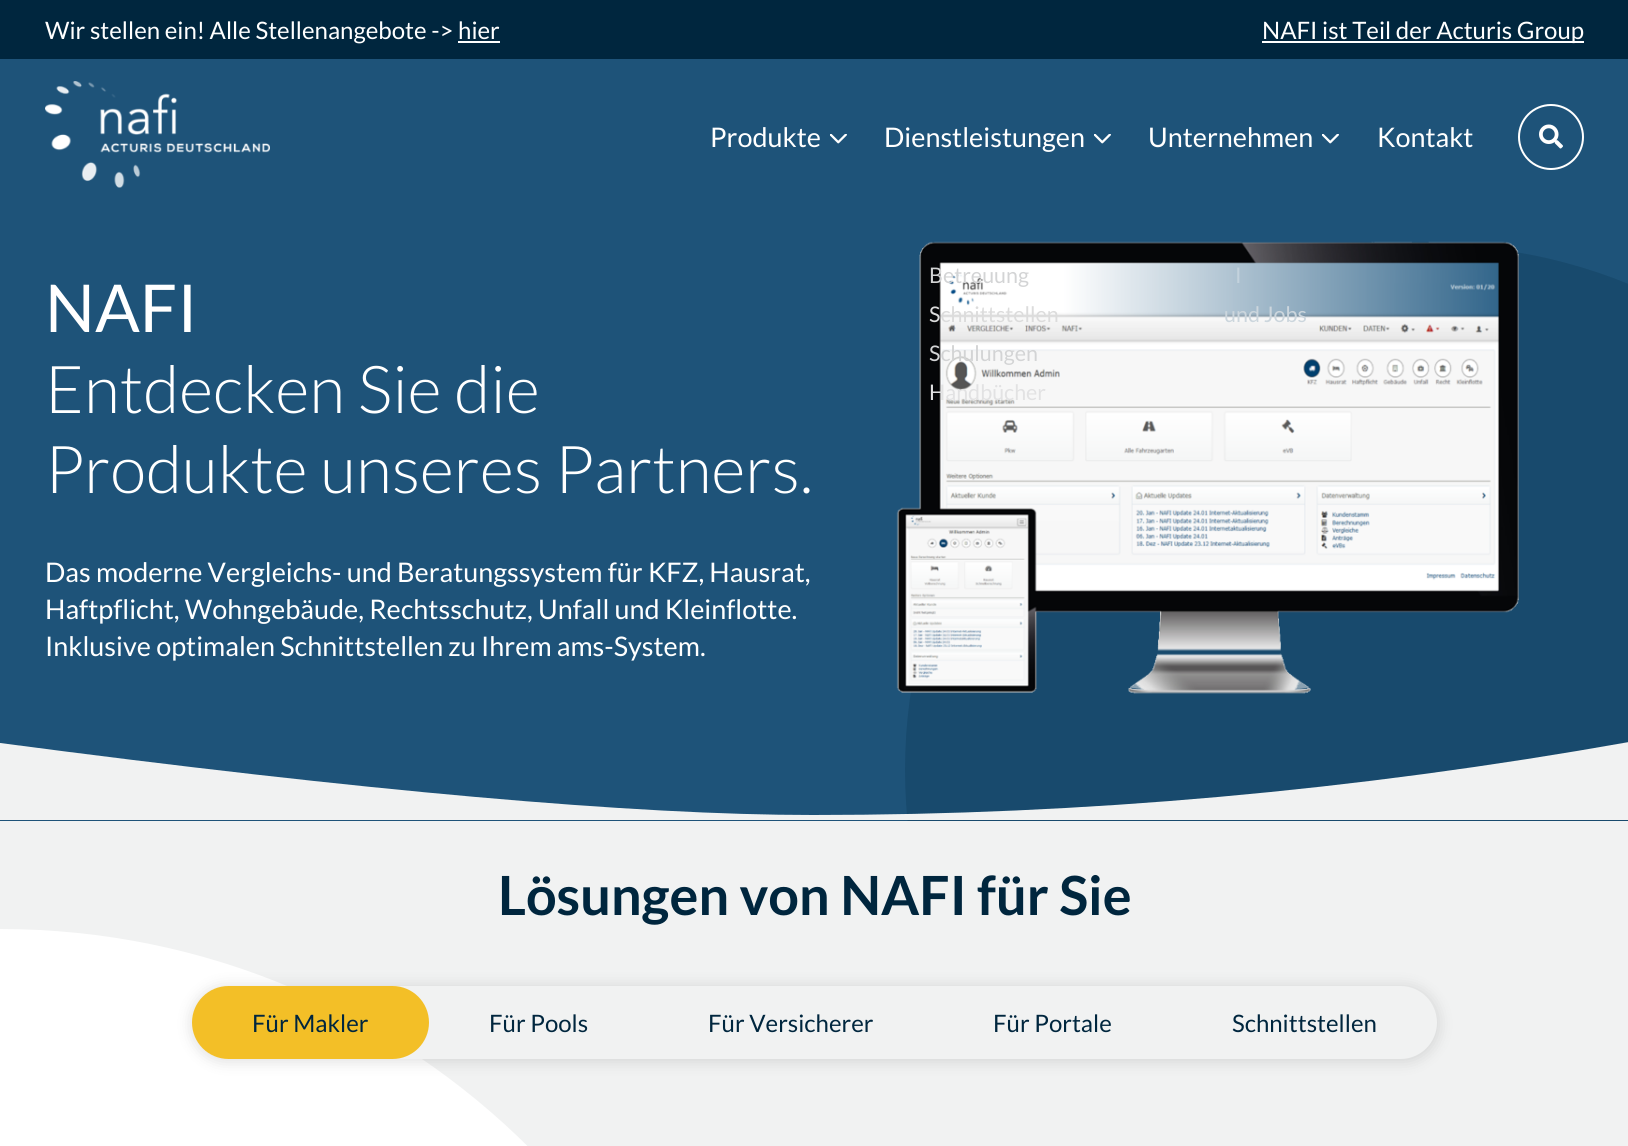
import math
import cairo


def use_color(cr, r, g, b):
  cr.set_source_rgb(r / 255, g / 255, b / 255)

def text(cr, x, y, s, family, size, color, bold=False, italic=False):
  cr.select_font_face(family, cairo.FONT_SLANT_ITALIC if italic else cairo.FONT_SLANT_NORMAL, cairo.FONT_WEIGHT_BOLD if bold else cairo.FONT_WEIGHT_NORMAL)
  cr.set_font_size(size)
  use_color(cr, *color)
  cr.move_to(x, y)
  cr.show_text(s)

def box(cr, x, y, w, h, *color):
  use_color(cr, *color)
  cr.rectangle(x, y, w, h)
  cr.fill()

def round_rect(cr, x, y, w, h, r):
  cr.new_sub_path()
  for i, (u, v) in enumerate([(x + w - r, y + h - r), (x + r, y + h - r), (x + r, y + r), (x + w - r, y + r)]):
    cr.arc(u, v, r, i * math.pi / 2, (i + 1) * math.pi / 2)
  cr.close_path()

def shadow(cr, x, y, w, h, r, blur, alpha):
  cr.push_group_with_content(cairo.CONTENT_ALPHA)
  cr.set_operator(cairo.OPERATOR_SOURCE)
  for i in range(15, -16, -2):
    e = blur * i / 6
    if min(w, h) + 2 * e > 0:
      cr.set_source_rgba(0, 0, 0, alpha * math.erfc((i - 1) / 8.5) / 2)
      round_rect(cr, x - e, y - e, w + 2 * e, h + 2 * e, max(0, min(r + e + blur * .6, min(w, h) / 2 + e)))
      cr.fill()
  cr.mask(cr.pop_group())

def picture(cr, path, x, y, w, h):
  cr.save()
  cr.set_source_surface(cairo.ImageSurface.create_from_png(path), x, y)
  cr.rectangle(x, y, w, h)
  cr.fill()
  cr.restore()

def draw(cr):
  use_color(cr, 30, 83, 121)
  cr.paint()
  box(cr, 0, 0, 1628, 59, 0, 38, 62)
  box(cr, 458, 41, 42, 2, 255, 255, 255)
  box(cr, 1262, 41, 322, 2, 255, 255, 255)
  picture(cr, "img_01.png", 45, 81, 225, 107)
  picture(cr, "img_02.png", 830, 134, 17, 10)
  picture(cr, "img_02.png", 1094, 134, 17, 10)
  picture(cr, "img_02.png", 1322, 134, 17, 10)
  cr.arc(1551, 137, 32, 0, 2 * math.pi)
  cr.stroke()
  picture(cr, "img_03.png", 1539, 124, 24, 25)
  use_color(cr, 24, 74, 109)
  cr.arc(1430, 770, 525, 0, 2 * math.pi)
  cr.fill()
  picture(cr, "img_04.png", 896, 241, 623, 453)
  use_color(cr, 241, 242, 242)
  cr.new_path()
  cr.move_to(0, 743)
  cr.curve_to(364, 791, 634, 815, 813, 815)
  cr.curve_to(1083, 815, 1354, 791, 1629, 742)
  cr.line_to(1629, 820)
  cr.line_to(0, 820)
  cr.close_path()
  cr.fill()
  box(cr, 0, 821, 1628, 325, 241, 242, 242)
  use_color(cr, 255, 255, 255)
  cr.new_path()
  cr.move_to(0, 929)
  cr.curve_to(414, 929, 750, 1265, 750, 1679)
  cr.line_to(0, 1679)
  cr.close_path()
  cr.fill()
  use_color(cr, 0, 0, 0)
  shadow(cr, 191, 986, 1248, 76, 38, 7.5, 0.12)
  use_color(cr, 241, 242, 242)
  round_rect(cr, 192, 986, 1245, 73, 36.5)
  cr.fill()
  use_color(cr, 243, 191, 39)
  round_rect(cr, 192, 986, 237, 73, 36.5)
  cr.fill()
  text(cr, 45, 39, "Wir stellen ein! Alle Stellenangebote -> hier", "Lato", 24, (255, 255, 255))
  text(cr, 1262, 39, "NAFI ist Teil der Acturis Group", "Lato", 24, (255, 255, 255))
  text(cr, 710, 147, "Produkte", "Lato", 27, (255, 255, 255))
  text(cr, 884, 147, "Dienstleistungen", "Lato", 27, (255, 255, 255))
  text(cr, 929, 283, "Betreuung", "Lato", 21.5, (211, 212, 213))
  text(cr, 929, 322, "Schnittstellen", "Lato", 21.5, (220, 220, 220))
  text(cr, 929, 361, "Schulungen", "Lato", 21.5, (211, 212, 213))
  text(cr, 929, 400, "Handbücher", "Lato", 21.5, (226, 226, 227))
  text(cr, 1148, 147, "Unternehmen", "Lato", 27, (255, 255, 255))
  text(cr, 1235, 283, "I", "Lato", 21.5, (195, 210, 221))
  text(cr, 1224, 322, "und Jobs", "Lato", 21.5, (204, 214, 221))
  text(cr, 1377, 147, "Kontakt", "Lato", 27, (255, 255, 255))
  text(cr, 45, 332, "NAFI", "Lato", 66, (255, 255, 255))
  text(cr, 45, 413, "Entdecken Sie die", "Lato Light", 66, (255, 255, 255))
  text(cr, 45, 493, "Produkte unseres Partners.", "Lato Light", 66, (255, 255, 255))
  text(cr, 45, 582, "Das moderne Vergleichs- und Beratungssystem für KFZ, Hausrat,", "Lato", 27, (255, 255, 255))
  text(cr, 45, 619, "Haftpflicht, Wohngebäude, Rechtsschutz, Unfall und Kleinflotte.", "Lato", 27, (255, 255, 255))
  text(cr, 45, 656, "Inklusive optimalen Schnittstellen zu Ihrem ams-System.", "Lato", 27, (255, 255, 255))
  text(cr, 498, 915, "Lösungen von NAFI für Sie", "Lato", 54, (0, 38, 62), bold=True)
  text(cr, 252, 1032, "Für Makler", "Lato", 24, (0, 38, 62))
  text(cr, 489, 1032, "Für Pools", "Lato", 24, (0, 38, 62))
  text(cr, 708, 1032, "Für Versicherer", "Lato", 24, (0, 38, 62))
  text(cr, 993, 1032, "Für Portale", "Lato", 24, (0, 38, 62))
  text(cr, 1232, 1032, "Schnittstellen", "Lato", 24, (0, 38, 62))


surface = cairo.ImageSurface(cairo.FORMAT_RGB24, 1628, 1146)
cr = cairo.Context(surface)
options = cairo.FontOptions()
options.set_hint_metrics(cairo.HINT_METRICS_OFF)
options.set_hint_style(cairo.HINT_STYLE_NONE)
cr.set_font_options(options)
cr.set_miter_limit(4)
draw(cr)
surface.write_to_png("out.png")
